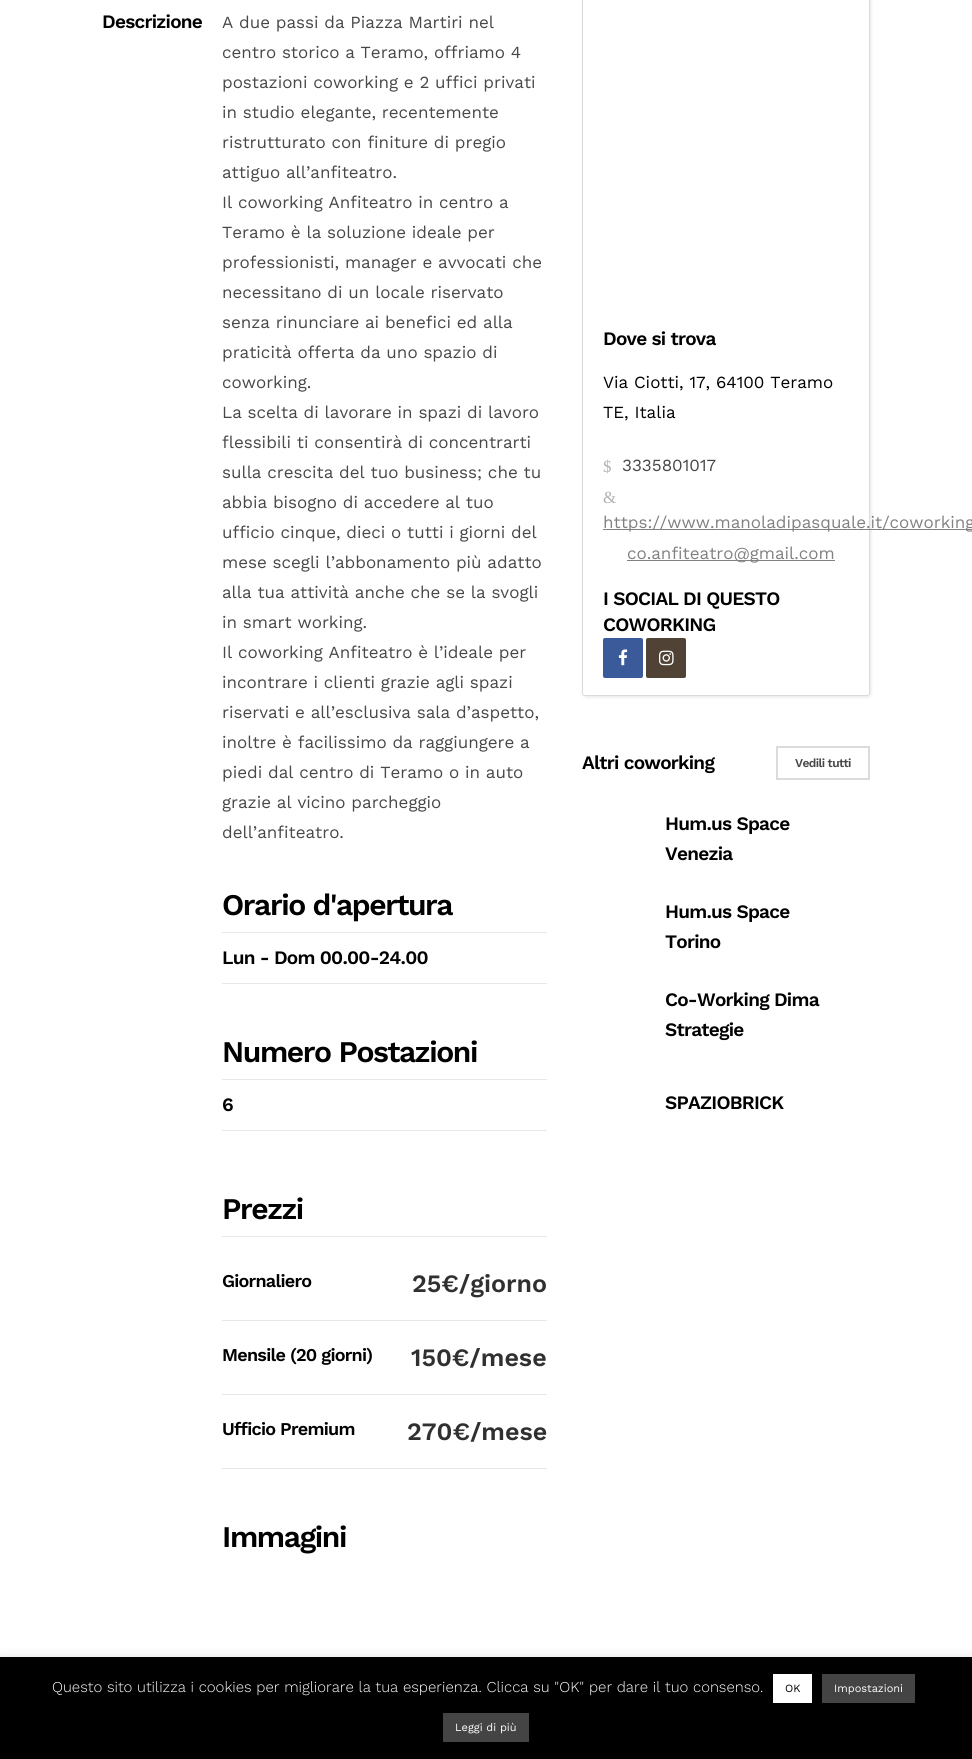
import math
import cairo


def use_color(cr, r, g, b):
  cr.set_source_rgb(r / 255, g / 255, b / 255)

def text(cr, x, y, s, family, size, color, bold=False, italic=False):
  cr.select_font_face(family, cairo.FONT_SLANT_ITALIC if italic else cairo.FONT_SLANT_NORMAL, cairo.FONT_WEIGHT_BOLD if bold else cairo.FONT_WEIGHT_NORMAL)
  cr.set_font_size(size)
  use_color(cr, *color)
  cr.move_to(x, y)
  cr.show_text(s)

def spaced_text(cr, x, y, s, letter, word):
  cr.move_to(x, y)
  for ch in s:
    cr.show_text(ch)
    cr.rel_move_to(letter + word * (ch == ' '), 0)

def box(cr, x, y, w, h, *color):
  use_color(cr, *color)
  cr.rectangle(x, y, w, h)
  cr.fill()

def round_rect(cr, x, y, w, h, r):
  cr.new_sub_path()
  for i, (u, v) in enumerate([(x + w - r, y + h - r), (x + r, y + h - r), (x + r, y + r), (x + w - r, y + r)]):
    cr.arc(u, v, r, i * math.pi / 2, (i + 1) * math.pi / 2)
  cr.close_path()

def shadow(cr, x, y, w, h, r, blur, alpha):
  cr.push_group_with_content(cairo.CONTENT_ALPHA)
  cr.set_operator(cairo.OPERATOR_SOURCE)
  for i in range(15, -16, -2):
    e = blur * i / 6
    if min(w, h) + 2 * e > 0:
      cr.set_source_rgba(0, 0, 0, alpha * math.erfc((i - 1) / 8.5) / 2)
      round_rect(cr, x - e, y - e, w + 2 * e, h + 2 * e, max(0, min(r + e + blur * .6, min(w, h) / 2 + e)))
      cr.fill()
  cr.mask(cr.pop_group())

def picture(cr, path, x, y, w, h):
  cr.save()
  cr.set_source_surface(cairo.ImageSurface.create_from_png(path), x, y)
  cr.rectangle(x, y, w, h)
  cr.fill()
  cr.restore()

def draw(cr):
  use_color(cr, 255, 255, 255)
  cr.paint()
  box(cr, 222, 932, 325, 1, 232, 232, 232)
  box(cr, 222, 983, 325, 1, 232, 232, 232)
  box(cr, 222, 1079, 325, 1, 232, 232, 232)
  box(cr, 222, 1130, 325, 1, 232, 232, 232)
  box(cr, 222, 1236, 325, 1, 232, 232, 232)
  box(cr, 222, 1320, 325, 1, 231, 231, 231)
  box(cr, 222, 1394, 325, 1, 231, 231, 231)
  box(cr, 222, 1468, 325, 1, 231, 231, 231)
  cr.save()
  cr.set_fill_rule(cairo.FILL_RULE_EVEN_ODD)
  cr.new_path()
  cr.move_to(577, 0)
  cr.line_to(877, 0)
  cr.line_to(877, 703)
  cr.line_to(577, 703)
  cr.close_path()
  cr.move_to(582, -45)
  cr.line_to(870, -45)
  cr.line_to(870, 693)
  cr.curve_to(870, 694.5, 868.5, 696, 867, 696)
  cr.line_to(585, 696)
  cr.curve_to(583.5, 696, 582, 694.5, 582, 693)
  cr.close_path()
  cr.clip()
  use_color(cr, 0, 0, 0)
  shadow(cr, 583, -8, 288, 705, 3, 1.5, 0.1)
  cr.restore()
  cr.new_path()
  cr.move_to(582.5, -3.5)
  cr.line_to(869.5, -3.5)
  cr.line_to(869.5, 693)
  cr.curve_to(869.5, 694.5, 868.5, 695.5, 867, 695.5)
  cr.line_to(585, 695.5)
  cr.curve_to(583.5, 695.5, 582.5, 694.5, 582.5, 693)
  cr.close_path()
  use_color(cr, 219, 219, 219)
  cr.set_line_width(1)
  cr.stroke()
  box(cr, 603, 529, 369, 1, 129, 129, 129)
  box(cr, 627, 560, 208, 1, 129, 129, 129)
  use_color(cr, 59, 90, 154)
  round_rect(cr, 603, 638, 40, 40, 2)
  cr.fill()
  picture(cr, "img_01.png", 618, 649, 10, 17)
  use_color(cr, 80, 66, 53)
  round_rect(cr, 646, 638, 40, 40, 2)
  cr.fill()
  picture(cr, "img_02.png", 659, 650, 15, 16)
  cr.rectangle(777, 747, 92, 32)
  use_color(cr, 219, 219, 219)
  cr.set_line_width(2)
  cr.stroke()
  use_color(cr, 172, 171, 171)
  shadow(cr, 0, 1656, 972, 102, 0, 5, 0.3)
  box(cr, 0, 1657, 972, 102, 0, 0, 0)
  box(cr, 773, 1674, 39, 29, 255, 255, 255)
  box(cr, 822, 1674, 93, 29, 68, 68, 68)
  box(cr, 443, 1713, 86, 29, 68, 68, 68)
  cr.select_font_face("Work Sans SemiBold")
  cr.set_font_size(19)
  use_color(cr, 0, 0, 0)
  spaced_text(cr, 102, 28, "Descrizione", -0.75, 0)
  text(cr, 222, 28, "A due passi da Piazza Martiri nel", "Work Sans", 17, (72, 72, 72))
  text(cr, 222, 58, "centro storico a Teramo, offriamo 4", "Work Sans", 17, (72, 72, 72))
  text(cr, 222, 88, "postazioni coworking e 2 uffici privati", "Work Sans", 17, (72, 72, 72))
  text(cr, 222, 118, "in studio elegante, recentemente", "Work Sans", 17, (72, 72, 72))
  text(cr, 222, 148, "ristrutturato con finiture di pregio", "Work Sans", 17, (72, 72, 72))
  text(cr, 222, 178, "attiguo all’anfiteatro.", "Work Sans", 17, (72, 72, 72))
  text(cr, 222, 208, "Il coworking Anfiteatro in centro a", "Work Sans", 17, (72, 72, 72))
  text(cr, 222, 238, "Teramo è la soluzione ideale per", "Work Sans", 17, (72, 72, 72))
  text(cr, 222, 268, "professionisti, manager e avvocati che", "Work Sans", 17, (72, 72, 72))
  text(cr, 222, 298, "necessitano di un locale riservato", "Work Sans", 17, (72, 72, 72))
  text(cr, 222, 328, "senza rinunciare ai benefici ed alla", "Work Sans", 17, (72, 72, 72))
  text(cr, 222, 358, "praticità offerta da uno spazio di", "Work Sans", 17, (72, 72, 72))
  text(cr, 222, 388, "coworking.", "Work Sans", 17, (72, 72, 72))
  text(cr, 222, 418, "La scelta di lavorare in spazi di lavoro", "Work Sans", 17, (72, 72, 72))
  text(cr, 222, 448, "flessibili ti consentirà di concentrarti", "Work Sans", 17, (72, 72, 72))
  text(cr, 222, 478, "sulla crescita del tuo business; che tu", "Work Sans", 17, (72, 72, 72))
  text(cr, 222, 508, "abbia bisogno di accedere al tuo", "Work Sans", 17, (72, 72, 72))
  text(cr, 222, 538, "ufficio cinque, dieci o tutti i giorni del", "Work Sans", 17, (72, 72, 72))
  text(cr, 222, 568, "mese scegli l’abbonamento più adatto", "Work Sans", 17, (72, 72, 72))
  text(cr, 222, 598, "alla tua attività anche che se la svogli", "Work Sans", 17, (72, 72, 72))
  text(cr, 222, 628, "in smart working.", "Work Sans", 17, (72, 72, 72))
  text(cr, 222, 658, "Il coworking Anfiteatro è l’ideale per", "Work Sans", 17, (72, 72, 72))
  text(cr, 222, 688, "incontrare i clienti grazie agli spazi", "Work Sans", 17, (72, 72, 72))
  text(cr, 222, 718, "riservati e all’esclusiva sala d’aspetto,", "Work Sans", 17, (72, 72, 72))
  text(cr, 222, 748, "inoltre è facilissimo da raggiungere a", "Work Sans", 17, (72, 72, 72))
  text(cr, 222, 778, "piedi dal centro di Teramo o in auto", "Work Sans", 17, (72, 72, 72))
  text(cr, 222, 808, "grazie al vicino parcheggio", "Work Sans", 17, (72, 72, 72))
  text(cr, 222, 838, "dell’anfiteatro.", "Work Sans", 17, (72, 72, 72))
  cr.select_font_face("Work Sans SemiBold")
  cr.set_font_size(30)
  use_color(cr, 0, 0, 0)
  spaced_text(cr, 222, 915, "Orario d'apertura", -1.4, 0)
  cr.set_font_size(19)
  spaced_text(cr, 222, 964, "Lun - Dom 00.00-24.00", -0.75, 0)
  cr.set_font_size(30)
  spaced_text(cr, 222, 1062, "Numero Postazioni", -1.4, 0)
  cr.set_font_size(19)
  spaced_text(cr, 222, 1111, "6", -0.75, 0)
  cr.set_font_size(30)
  spaced_text(cr, 222, 1219, "Prezzi", -1.4, 0)
  cr.set_font_size(18)
  spaced_text(cr, 222, 1287, "Giornaliero", -0.75, 0)
  text(cr, 412, 1292, "25€/giorno", "Work Sans SemiBold", 25, (48, 48, 48))
  cr.set_font_size(18)
  use_color(cr, 0, 0, 0)
  spaced_text(cr, 222, 1361, "Mensile (20 giorni)", -0.75, 0)
  text(cr, 411, 1366, "150€/mese", "Work Sans SemiBold", 25, (48, 48, 48))
  cr.set_font_size(18)
  use_color(cr, 0, 0, 0)
  spaced_text(cr, 222, 1435, "Ufficio Premium", -0.75, 0)
  text(cr, 407, 1440, "270€/mese", "Work Sans SemiBold", 25, (48, 48, 48))
  cr.set_font_size(30)
  use_color(cr, 0, 0, 0)
  spaced_text(cr, 222, 1547, "Immagini", -1.4, 0)
  cr.set_font_size(19)
  spaced_text(cr, 603, 345, "Dove si trova", -0.75, 0)
  text(cr, 603, 388, "Via Ciotti, 17, 64100 Teramo", "Work Sans", 17, (0, 0, 0))
  text(cr, 603, 418, "TE, Italia", "Work Sans", 17, (0, 0, 0))
  text(cr, 603, 472, "$", "Liberation Serif", 17, (178, 178, 178))
  text(cr, 622, 471, "3335801017", "Work Sans", 17, (72, 72, 72))
  text(cr, 603, 503, "&", "Liberation Serif", 17, (178, 178, 178))
  text(cr, 603, 528, "https://www.manoladipasquale.it/coworking", "Work Sans", 17, (129, 129, 129))
  text(cr, 627, 559, "co.anfiteatro@gmail.com", "Work Sans", 17, (129, 129, 129))
  cr.select_font_face("Work Sans SemiBold")
  cr.set_font_size(19)
  use_color(cr, 0, 0, 0)
  spaced_text(cr, 603, 605, "I SOCIAL DI QUESTO", -0.75, 0)
  spaced_text(cr, 603, 631, "COWORKING", -0.75, 0)
  spaced_text(cr, 582, 769, "Altri coworking", -0.75, 0)
  cr.set_font_size(12)
  use_color(cr, 72, 72, 72)
  spaced_text(cr, 795, 767, "Vedili tutti", -0.6, 0)
  cr.set_font_size(19)
  use_color(cr, 0, 0, 0)
  spaced_text(cr, 665, 830, "Hum.us Space", -0.75, 0)
  spaced_text(cr, 665, 860, "Venezia", -0.75, 0)
  spaced_text(cr, 665, 918, "Hum.us Space", -0.75, 0)
  spaced_text(cr, 665, 948, "Torino", -0.75, 0)
  spaced_text(cr, 665, 1006, "Co-Working Dima", -0.75, 0)
  spaced_text(cr, 665, 1036, "Strategie", -0.75, 0)
  spaced_text(cr, 665, 1109, "SPAZIOBRICK", -0.75, 0)
  text(cr, 52, 1692, "Questo sito utilizza i cookies per migliorare la tua esperienza. Clicca su \"OK\" per dare il tuo consenso.", "Work Sans Light", 15, (255, 255, 255))
  text(cr, 785, 1692, "OK", "Work Sans", 11, (0, 0, 0))
  text(cr, 834, 1692, "Impostazioni", "Work Sans", 11, (255, 255, 255))
  text(cr, 455, 1731, "Leggi di più", "Work Sans", 11, (255, 255, 255))


surface = cairo.ImageSurface(cairo.FORMAT_RGB24, 972, 1759)
cr = cairo.Context(surface)
options = cairo.FontOptions()
options.set_hint_metrics(cairo.HINT_METRICS_OFF)
options.set_hint_style(cairo.HINT_STYLE_NONE)
cr.set_font_options(options)
cr.set_miter_limit(4)
draw(cr)
surface.write_to_png("out.png")
